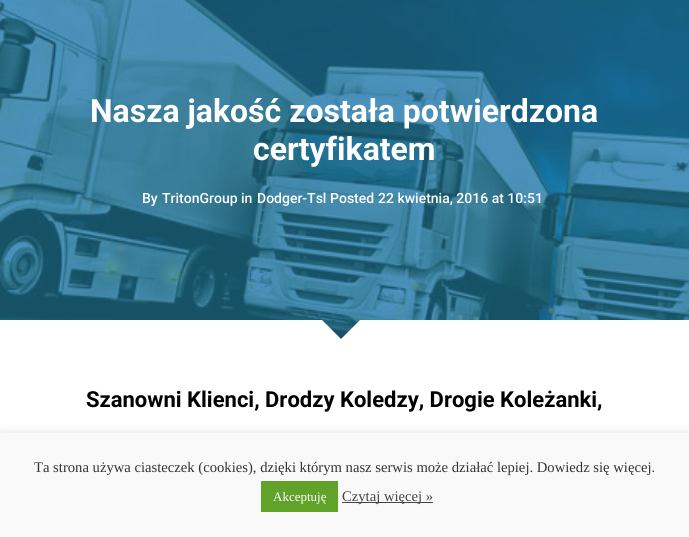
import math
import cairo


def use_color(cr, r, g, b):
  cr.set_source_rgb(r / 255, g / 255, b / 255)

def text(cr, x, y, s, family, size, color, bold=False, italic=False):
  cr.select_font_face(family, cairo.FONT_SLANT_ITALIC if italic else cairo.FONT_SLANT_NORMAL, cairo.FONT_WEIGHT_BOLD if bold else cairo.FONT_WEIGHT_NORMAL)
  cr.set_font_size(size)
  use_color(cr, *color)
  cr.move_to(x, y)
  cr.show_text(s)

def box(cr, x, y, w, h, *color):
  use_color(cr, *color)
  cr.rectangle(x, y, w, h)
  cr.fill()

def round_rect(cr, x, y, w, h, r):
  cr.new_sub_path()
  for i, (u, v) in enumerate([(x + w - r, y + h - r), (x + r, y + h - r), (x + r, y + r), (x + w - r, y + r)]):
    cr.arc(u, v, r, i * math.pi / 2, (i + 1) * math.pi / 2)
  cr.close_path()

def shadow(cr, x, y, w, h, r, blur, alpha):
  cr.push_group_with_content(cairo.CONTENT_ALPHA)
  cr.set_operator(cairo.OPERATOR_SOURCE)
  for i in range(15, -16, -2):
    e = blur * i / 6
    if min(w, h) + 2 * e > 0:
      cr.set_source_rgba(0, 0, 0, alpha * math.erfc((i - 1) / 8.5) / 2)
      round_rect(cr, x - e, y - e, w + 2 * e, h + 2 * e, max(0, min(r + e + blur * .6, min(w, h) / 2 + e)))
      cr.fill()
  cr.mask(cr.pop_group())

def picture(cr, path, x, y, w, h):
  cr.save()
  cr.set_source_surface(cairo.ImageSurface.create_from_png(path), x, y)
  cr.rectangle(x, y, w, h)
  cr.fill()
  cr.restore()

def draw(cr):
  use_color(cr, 255, 255, 255)
  cr.paint()
  picture(cr, "img_01.png", 0, 0, 689, 339)
  use_color(cr, 255, 255, 255)
  cr.new_path()
  cr.move_to(-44, 320)
  cr.line_to(322, 320)
  cr.line_to(354, 352)
  cr.line_to(-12, 352)
  cr.close_path()
  cr.fill()
  cr.new_path()
  cr.move_to(360, 320)
  cr.line_to(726, 320)
  cr.line_to(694, 352)
  cr.line_to(328, 352)
  cr.close_path()
  cr.fill()
  use_color(cr, 172, 171, 171)
  shadow(cr, 0, 432, 689, 104, 0, 5, 0.3)
  box(cr, 0, 433, 689, 104, 249, 249, 249)
  box(cr, 261, 481, 77, 31, 97, 162, 41)
  box(cr, 342, 502, 91, 1, 68, 68, 68)
  text(cr, 90, 122, "Nasza jakość została potwierdzona", "Roboto", 32, (255, 255, 255), bold=True)
  text(cr, 253, 160, "certyfikatem", "Roboto", 32, (255, 255, 255), bold=True)
  text(cr, 142, 203, "By", "Roboto Medium", 14, (255, 255, 255))
  text(cr, 162, 203, "TritonGroup", "Roboto Medium", 14, (255, 255, 255))
  text(cr, 241, 203, "in", "Roboto Medium", 14, (255, 255, 255))
  text(cr, 257, 203, "Dodger-Tsl", "Roboto Medium", 14, (255, 255, 255))
  text(cr, 330, 203, "Posted", "Roboto Medium", 14, (255, 255, 255))
  text(cr, 378, 203, "22 kwietnia, 2016 at 10:51", "Roboto Medium", 14, (255, 255, 255))
  text(cr, 86, 407, "Szanowni Klienci, Drodzy Koledzy, Drogie Koleżanki,", "Roboto", 22, (0, 0, 0), bold=True)
  text(cr, 34, 472, "Ta strona używa ciasteczek (cookies), dzięki którym nasz serwis może działać lepiej. Dowiedz się więcej.", "Liberation Serif", 14.65, (51, 51, 51))
  text(cr, 273, 501, "Akceptuję", "Liberation Serif", 13, (255, 255, 255))
  text(cr, 342, 501, "Czytaj więcej »", "Liberation Serif", 14.65, (68, 68, 68))


surface = cairo.ImageSurface(cairo.FORMAT_RGB24, 689, 537)
cr = cairo.Context(surface)
options = cairo.FontOptions()
options.set_hint_metrics(cairo.HINT_METRICS_OFF)
options.set_hint_style(cairo.HINT_STYLE_NONE)
cr.set_font_options(options)
cr.set_miter_limit(4)
draw(cr)
surface.write_to_png("out.png")
